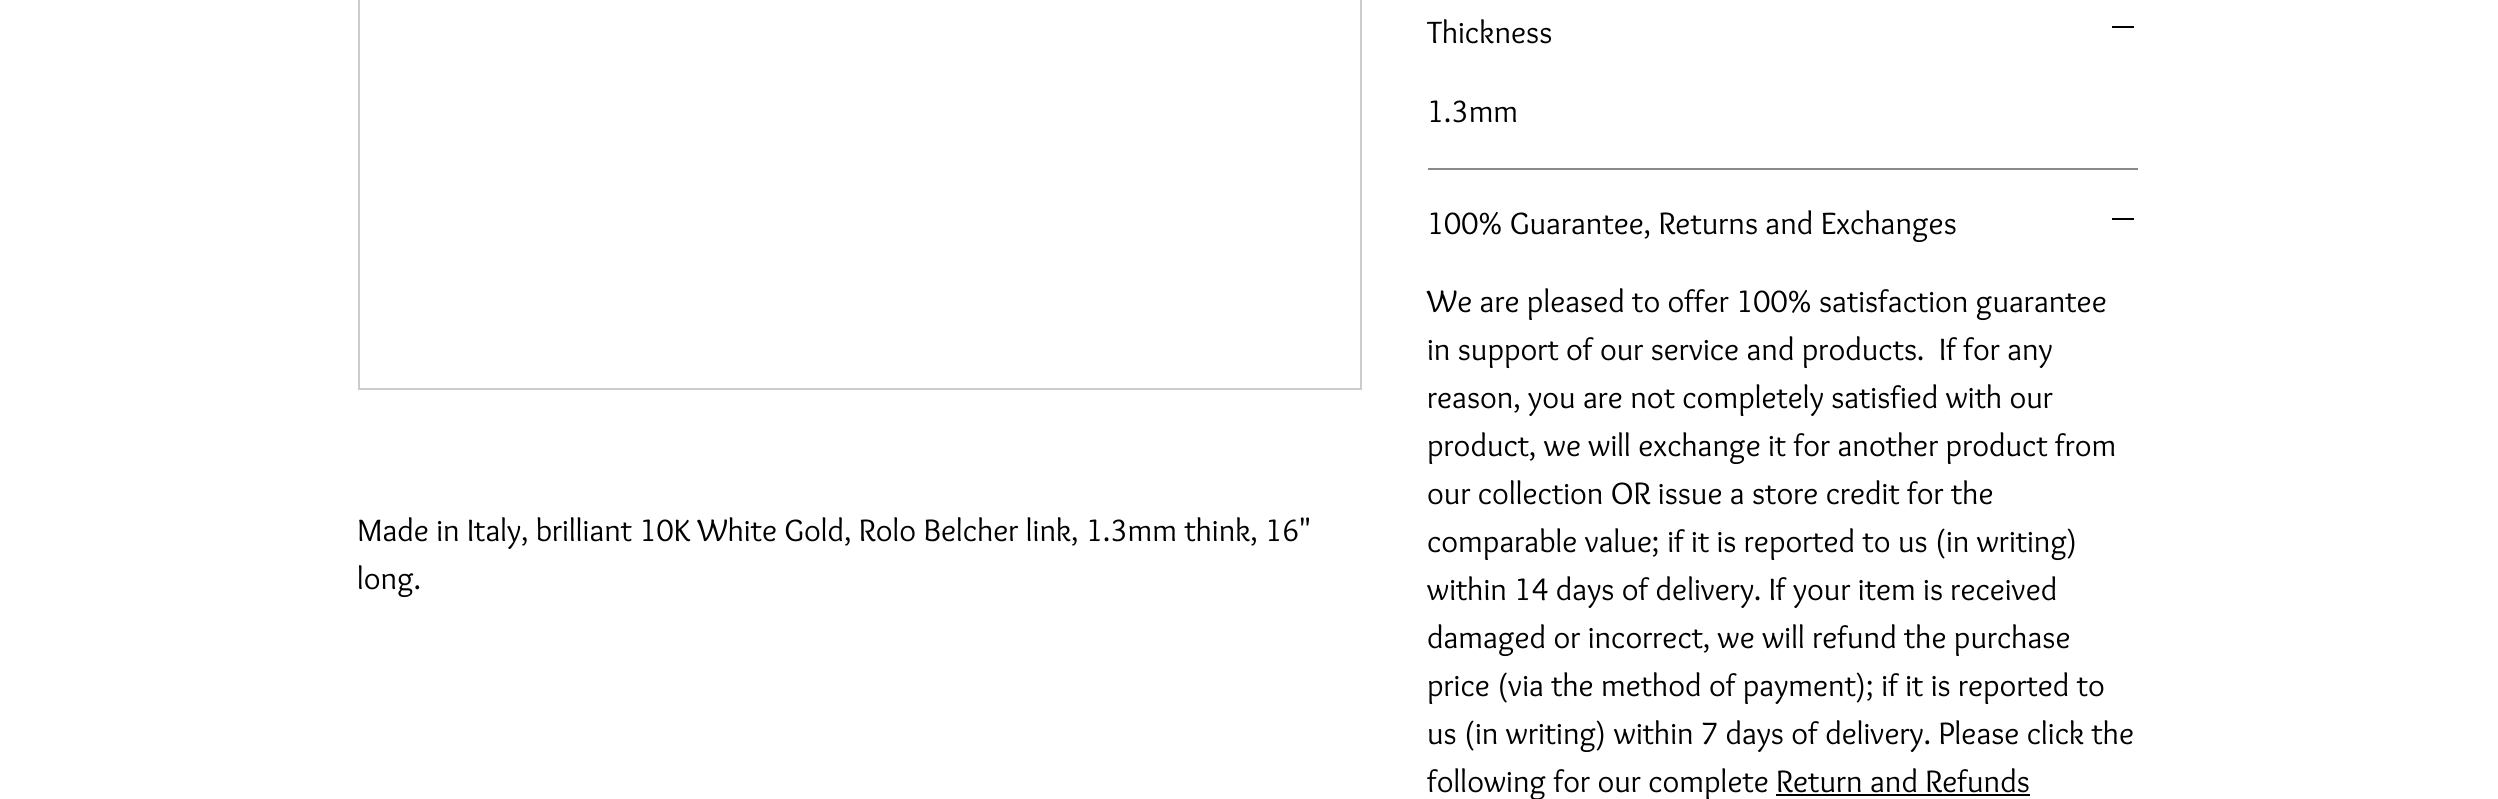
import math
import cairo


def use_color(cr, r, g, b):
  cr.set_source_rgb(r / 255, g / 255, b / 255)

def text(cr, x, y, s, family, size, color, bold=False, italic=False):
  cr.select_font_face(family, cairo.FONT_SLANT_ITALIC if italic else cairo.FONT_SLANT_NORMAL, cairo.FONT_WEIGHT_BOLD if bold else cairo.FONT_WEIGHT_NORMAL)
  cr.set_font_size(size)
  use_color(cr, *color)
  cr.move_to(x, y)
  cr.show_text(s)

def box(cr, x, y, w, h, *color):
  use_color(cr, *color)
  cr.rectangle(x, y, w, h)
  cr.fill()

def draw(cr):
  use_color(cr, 255, 255, 255)
  cr.paint()
  cr.rectangle(359, -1, 1002, 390)
  use_color(cr, 204, 204, 204)
  cr.stroke()
  box(cr, 1428, 168, 710, 2, 139, 138, 138)
  box(cr, 2112, 26, 22, 2, 0, 0, 0)
  box(cr, 2112, 218, 22, 2, 0, 0, 0)
  box(cr, 1776, 794, 254, 2, 0, 0, 0)
  text(cr, 357, 541, "Made in Italy, brilliant 10K White Gold, Rolo Belcher link, 1.3mm think, 16\"", "Overlock", 32, (0, 0, 0))
  text(cr, 357, 589, "long.", "Overlock", 32, (0, 0, 0))
  text(cr, 1427, 43, "Thickness", "Overlock", 32, (0, 0, 0))
  text(cr, 1427, 122, "1.3mm", "Overlock", 32, (0, 0, 0))
  text(cr, 1427, 234, "100% Guarantee, Returns and Exchanges", "Overlock", 32, (0, 0, 0))
  text(cr, 1427, 312, "We are pleased to offer 100% satisfaction guarantee", "Overlock", 32, (0, 0, 0))
  text(cr, 1427, 360, "in support of our service and products.  If for any", "Overlock", 32, (0, 0, 0))
  text(cr, 1427, 408, "reason, you are not completely satisfied with our", "Overlock", 32, (0, 0, 0))
  text(cr, 1427, 456, "product, we will exchange it for another product from", "Overlock", 32, (0, 0, 0))
  text(cr, 1427, 504, "our collection OR issue a store credit for the", "Overlock", 32, (0, 0, 0))
  text(cr, 1427, 552, "comparable value; if it is reported to us (in writing)", "Overlock", 32, (0, 0, 0))
  text(cr, 1427, 600, "within 14 days of delivery. If your item is received", "Overlock", 32, (0, 0, 0))
  text(cr, 1427, 648, "damaged or incorrect, we will refund the purchase", "Overlock", 32, (0, 0, 0))
  text(cr, 1427, 696, "price (via the method of payment); if it is reported to", "Overlock", 32, (0, 0, 0))
  text(cr, 1427, 744, "us (in writing) within 7 days of delivery. Please click the", "Overlock", 32, (0, 0, 0))
  text(cr, 1427, 792, "following for our complete Return and Refunds", "Overlock", 32, (0, 0, 0))


surface = cairo.ImageSurface(cairo.FORMAT_RGB24, 2498, 799)
cr = cairo.Context(surface)
options = cairo.FontOptions()
options.set_hint_metrics(cairo.HINT_METRICS_OFF)
options.set_hint_style(cairo.HINT_STYLE_NONE)
cr.set_font_options(options)
cr.set_miter_limit(4)
draw(cr)
surface.write_to_png("out.png")
